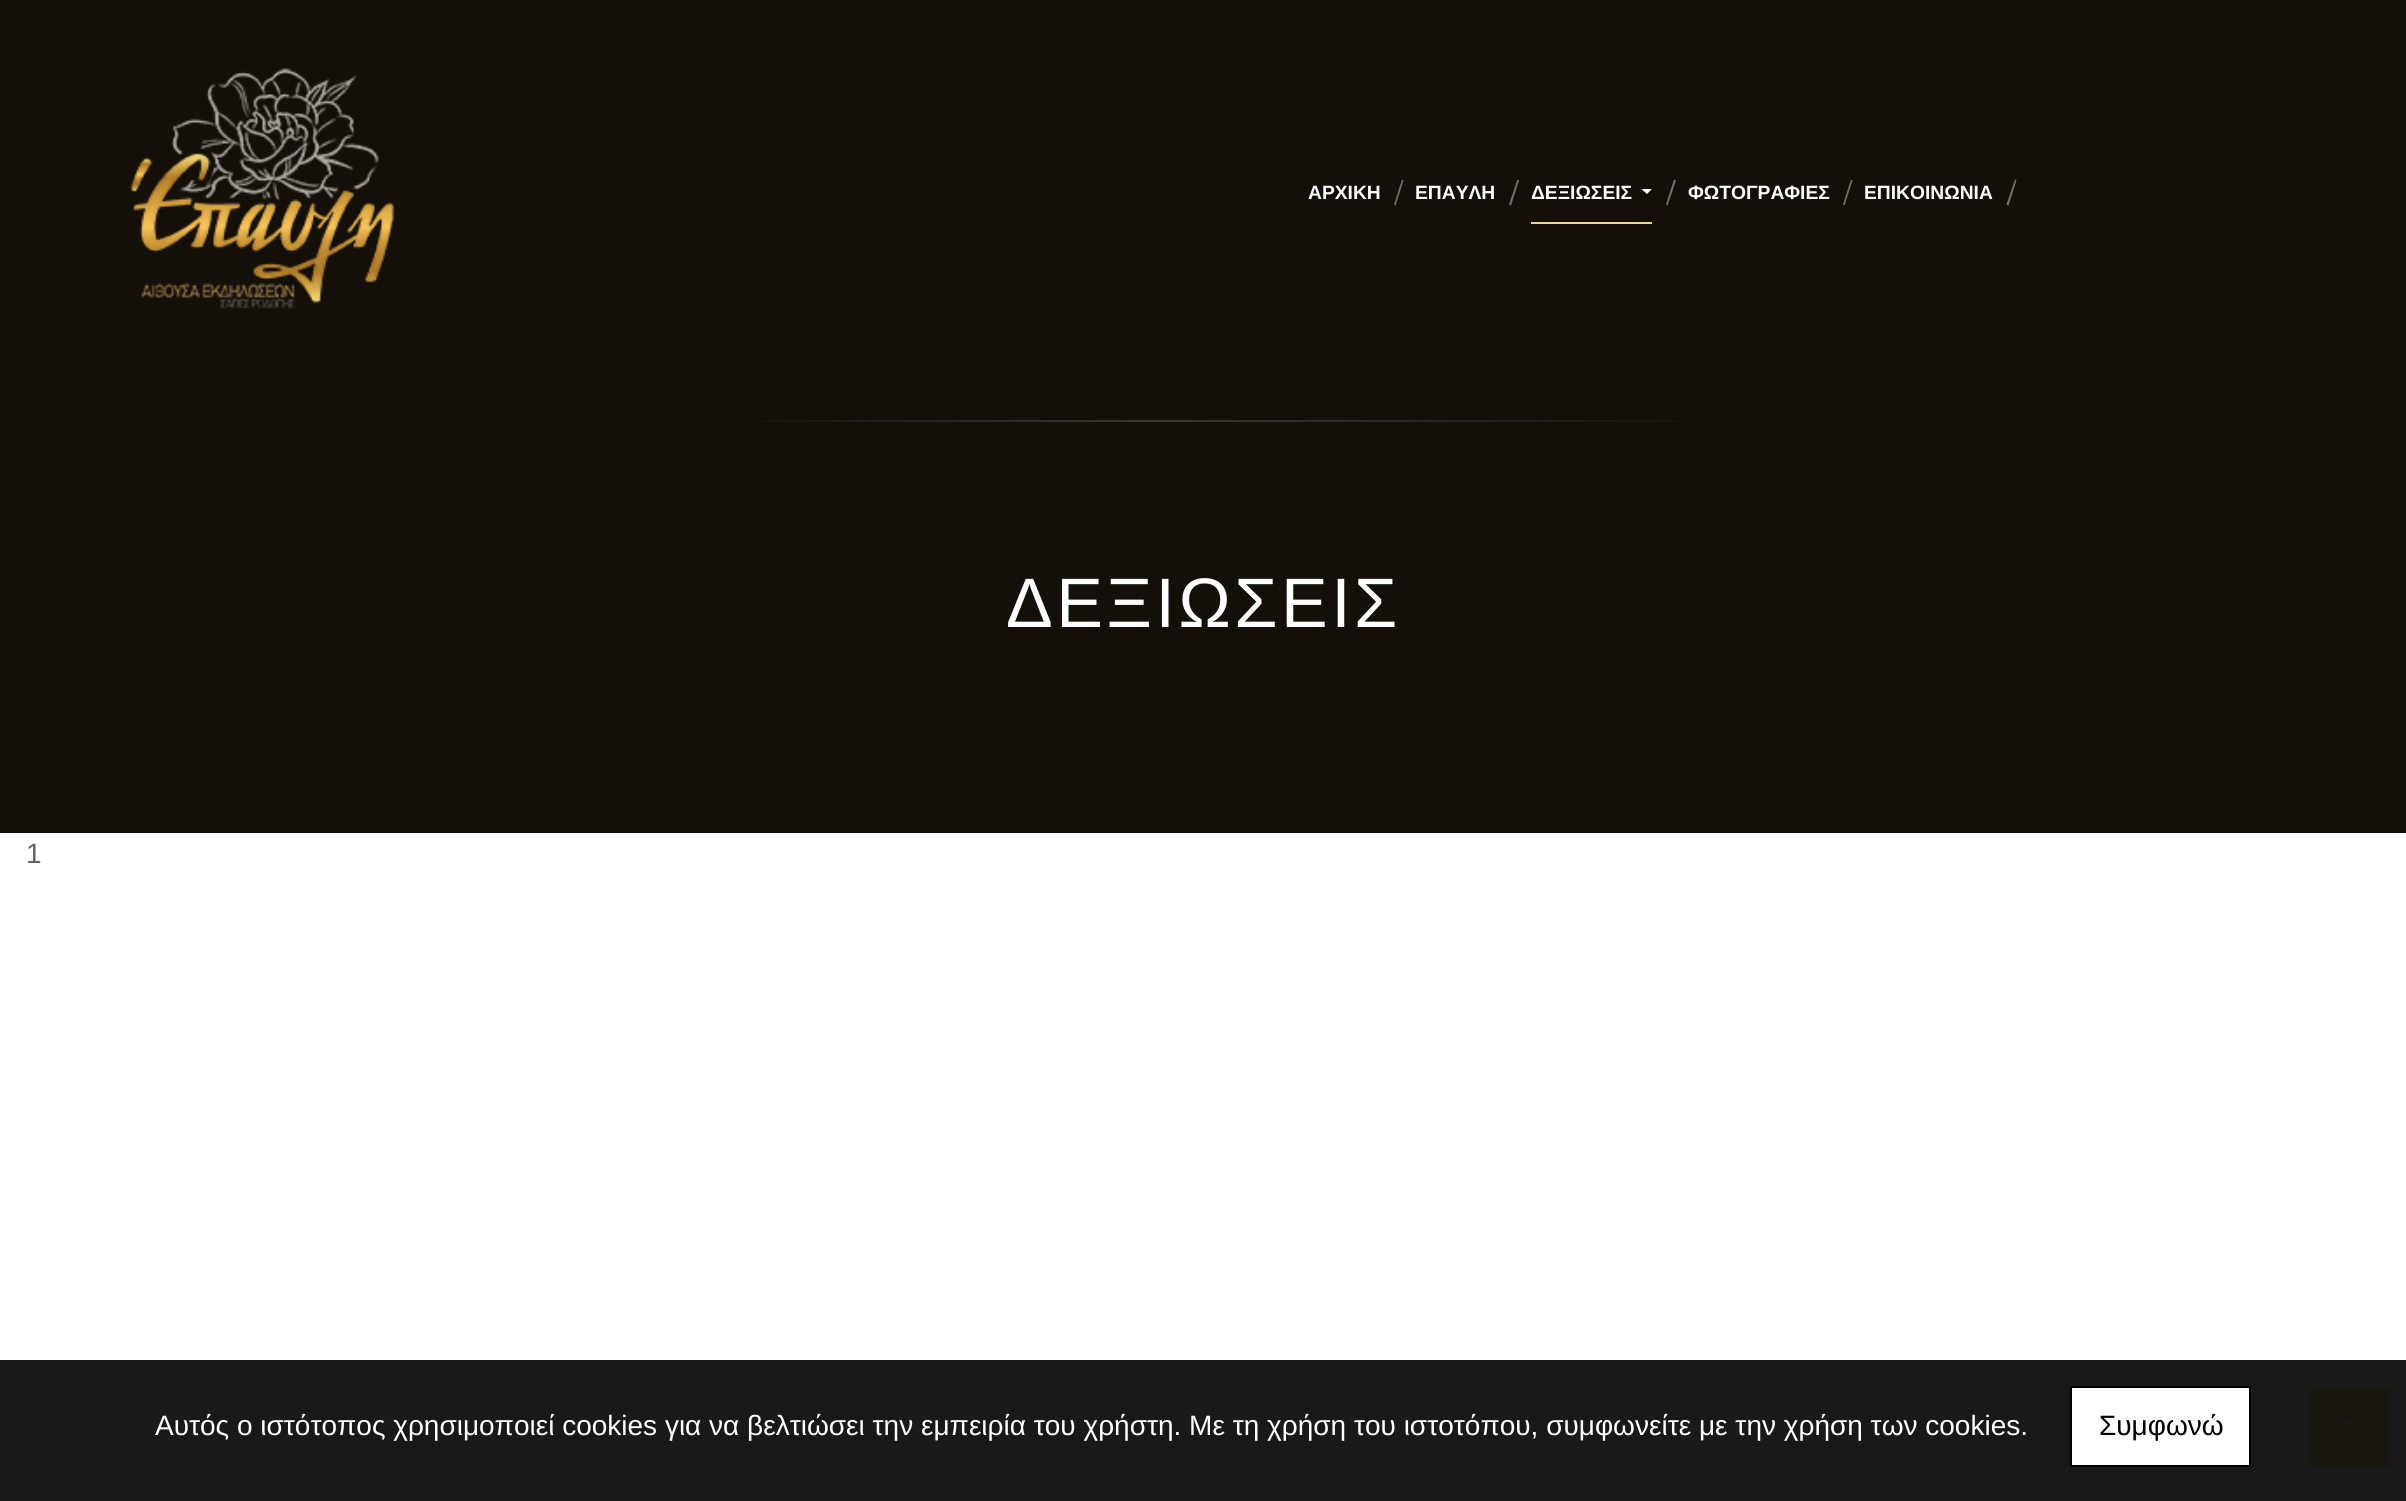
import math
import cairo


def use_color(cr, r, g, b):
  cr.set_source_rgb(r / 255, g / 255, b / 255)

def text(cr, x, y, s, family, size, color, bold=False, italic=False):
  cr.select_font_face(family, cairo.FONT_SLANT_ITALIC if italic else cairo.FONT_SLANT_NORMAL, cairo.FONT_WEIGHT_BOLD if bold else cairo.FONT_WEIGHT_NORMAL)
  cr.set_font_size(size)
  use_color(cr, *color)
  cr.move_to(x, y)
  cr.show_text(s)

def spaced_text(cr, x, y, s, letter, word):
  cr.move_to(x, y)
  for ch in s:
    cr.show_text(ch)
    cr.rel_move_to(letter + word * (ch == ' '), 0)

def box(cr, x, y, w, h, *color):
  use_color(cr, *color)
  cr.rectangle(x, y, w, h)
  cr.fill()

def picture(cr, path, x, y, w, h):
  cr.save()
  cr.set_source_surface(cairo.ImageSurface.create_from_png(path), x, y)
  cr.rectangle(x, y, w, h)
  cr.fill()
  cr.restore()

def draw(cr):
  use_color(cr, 255, 255, 255)
  cr.paint()
  box(cr, 0, 1360, 2406, 141, 25, 25, 25)
  box(cr, 0, 0, 2406, 833, 20, 16, 9)
  picture(cr, "img_01.png", 130, 67, 265, 242)
  use_color(cr, 114, 112, 107)
  cr.new_path()
  cr.move_to(1402, 179.5)
  cr.line_to(1403.5, 180.5)
  cr.line_to(1395.5, 205.5)
  cr.line_to(1394, 204.5)
  cr.close_path()
  cr.fill()
  cr.new_path()
  cr.move_to(1517.5, 179.5)
  cr.line_to(1519, 180.5)
  cr.line_to(1511, 205.5)
  cr.line_to(1509, 204.5)
  cr.close_path()
  cr.fill()
  use_color(cr, 255, 255, 255)
  cr.new_path()
  cr.move_to(1641.5, 189)
  cr.line_to(1652, 189)
  cr.line_to(1647, 194)
  cr.close_path()
  cr.fill()
  box(cr, 1531, 222, 121, 2, 244, 214, 136)
  use_color(cr, 114, 112, 107)
  cr.new_path()
  cr.move_to(1674, 179.5)
  cr.line_to(1676, 180.5)
  cr.line_to(1667.5, 205.5)
  cr.line_to(1666, 204.5)
  cr.close_path()
  cr.fill()
  cr.new_path()
  cr.move_to(1851, 179.5)
  cr.line_to(1852.5, 180.5)
  cr.line_to(1844.5, 205.5)
  cr.line_to(1843, 204.5)
  cr.close_path()
  cr.fill()
  cr.new_path()
  cr.move_to(2015, 179.5)
  cr.line_to(2016.5, 180.5)
  cr.line_to(2008.5, 205.5)
  cr.line_to(2006.5, 204.5)
  cr.close_path()
  cr.fill()
  gradient = cairo.LinearGradient(0, 421, 2406, 421)
  gradient.add_color_stop_rgba(0.3, 0.078, 0.063, 0.035, 1)
  gradient.add_color_stop_rgba(0.48, 0.239, 0.22, 0.133, 1)
  gradient.add_color_stop_rgba(0.72, 0.078, 0.063, 0.035, 1)
  cr.set_source(gradient)
  cr.rectangle(748, 420, 949, 2)
  cr.fill()
  use_color(cr, 255, 255, 255)
  cr.rectangle(2071, 1387, 179, 79)
  cr.fill_preserve()
  use_color(cr, 0, 0, 0)
  cr.stroke()
  box(cr, 2308, 1388, 81, 79, 25, 22, 16)
  picture(cr, "img_02.png", 2339, 1419, 18, 11)
  text(cr, 1308, 199, "ΑΡΧΙΚΗ", "Arimo", 19.25, (255, 255, 255), bold=True)
  text(cr, 1415, 199, "ΕΠΑΥΛΗ", "Arimo", 19.25, (255, 255, 255), bold=True)
  text(cr, 1531, 199, "ΔΕΞΙΩΣΕΙΣ", "Arimo", 19.25, (255, 255, 255), bold=True)
  text(cr, 1688, 199, "ΦΩΤΟΓΡΑΦΙΕΣ", "Arimo", 19.25, (255, 255, 255), bold=True)
  text(cr, 1864, 199, "ΕΠΙΚΟΙΝΩΝΙΑ", "Arimo", 19.25, (255, 255, 255), bold=True)
  cr.select_font_face("Arimo")
  cr.set_font_size(70)
  spaced_text(cr, 1006, 627, "ΔΕΞΙΩΣΕΙΣ", 3.5, 0)
  text(cr, 26, 863, "1", "Arimo", 28, (99, 99, 99))
  text(cr, 155, 1435, "Αυτός ο ιστότοπος χρησιμοποιεί cookies για να βελτιώσει την εμπειρία του χρήστη. Με τη χρήση του ιστοτόπου, συμφωνείτε με την χρήση των cookies.", "Arimo", 28, (255, 255, 255))
  text(cr, 2099, 1435, "Συμφωνώ", "Arimo", 28, (0, 0, 0))


surface = cairo.ImageSurface(cairo.FORMAT_RGB24, 2406, 1501)
cr = cairo.Context(surface)
options = cairo.FontOptions()
options.set_hint_metrics(cairo.HINT_METRICS_OFF)
options.set_hint_style(cairo.HINT_STYLE_NONE)
cr.set_font_options(options)
cr.set_miter_limit(4)
draw(cr)
surface.write_to_png("out.png")
